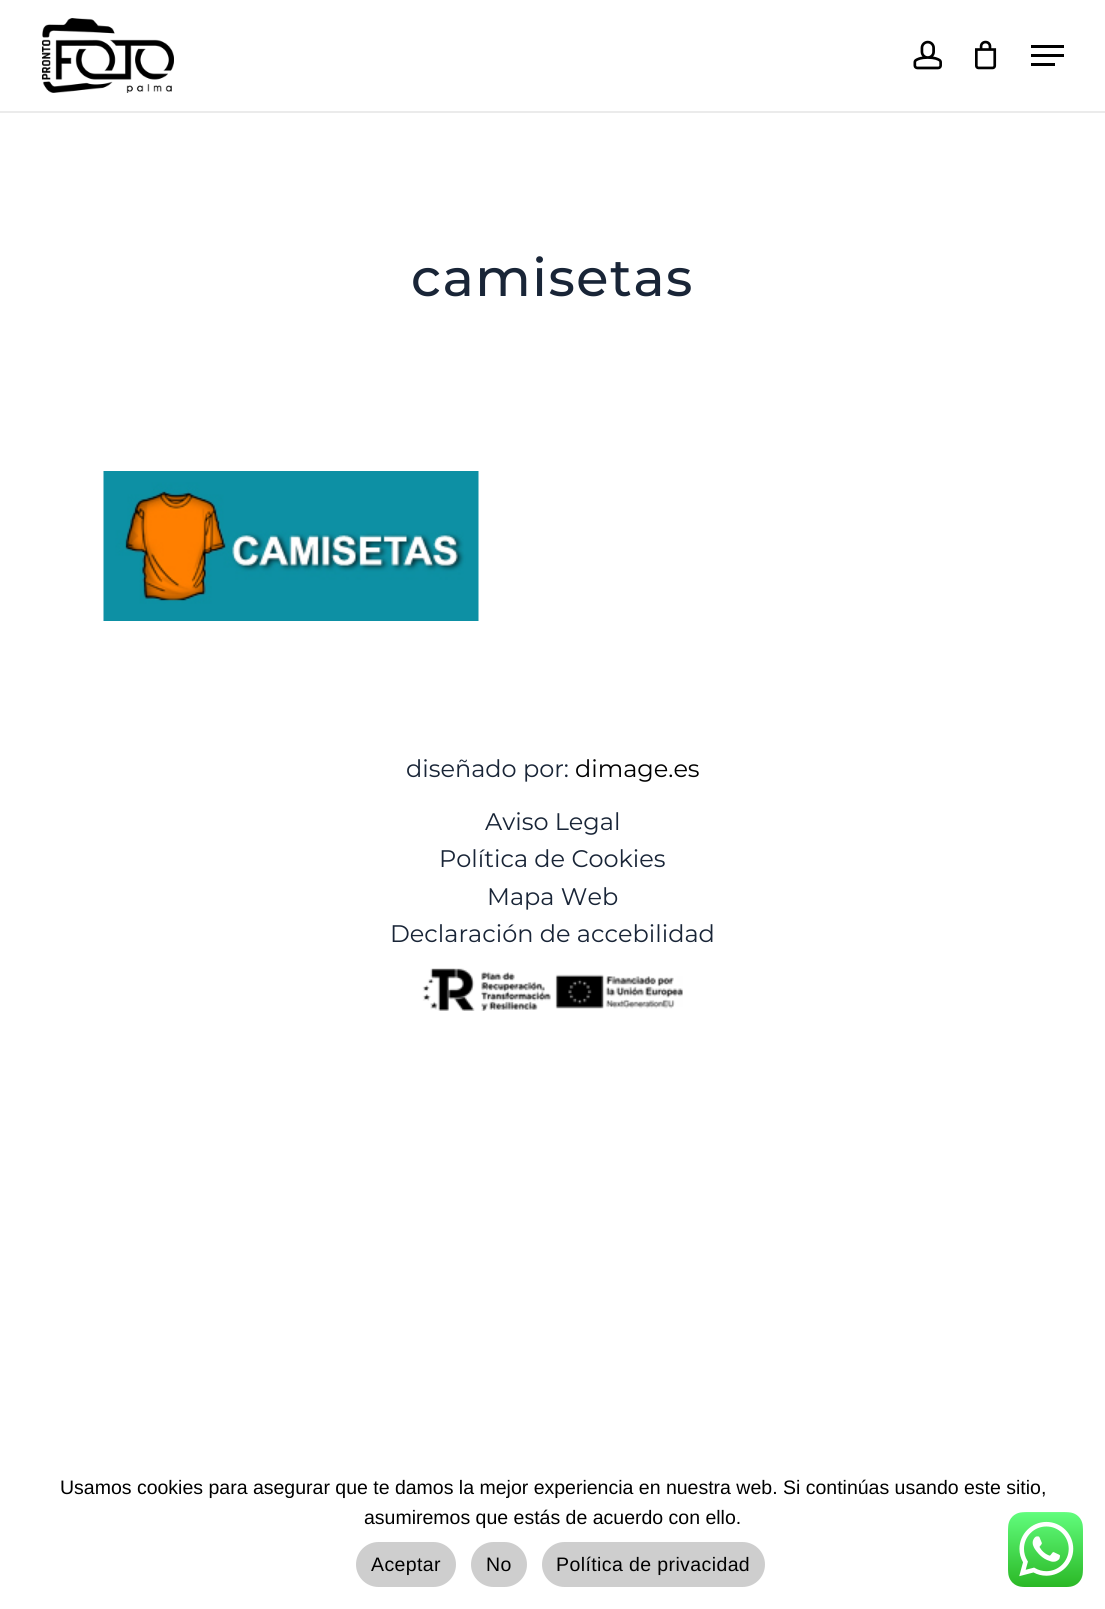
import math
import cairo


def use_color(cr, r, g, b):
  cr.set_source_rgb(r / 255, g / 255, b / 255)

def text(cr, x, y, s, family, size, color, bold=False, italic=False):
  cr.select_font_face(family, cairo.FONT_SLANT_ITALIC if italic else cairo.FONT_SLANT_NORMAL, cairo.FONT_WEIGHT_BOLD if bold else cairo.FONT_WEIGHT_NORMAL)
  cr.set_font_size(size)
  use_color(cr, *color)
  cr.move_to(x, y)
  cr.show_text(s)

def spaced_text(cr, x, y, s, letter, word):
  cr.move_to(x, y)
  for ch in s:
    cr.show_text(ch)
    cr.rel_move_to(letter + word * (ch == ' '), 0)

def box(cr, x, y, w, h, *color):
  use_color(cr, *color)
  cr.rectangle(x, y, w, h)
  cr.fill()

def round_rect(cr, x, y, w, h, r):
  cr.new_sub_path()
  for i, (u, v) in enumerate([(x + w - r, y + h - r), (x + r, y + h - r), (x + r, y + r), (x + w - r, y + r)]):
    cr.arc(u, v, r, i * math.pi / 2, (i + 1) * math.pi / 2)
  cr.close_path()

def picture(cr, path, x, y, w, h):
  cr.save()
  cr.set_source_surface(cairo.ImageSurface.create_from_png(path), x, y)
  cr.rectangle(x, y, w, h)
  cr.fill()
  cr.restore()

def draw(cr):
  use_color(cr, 255, 255, 255)
  cr.paint()
  use_color(cr, 235, 235, 235)
  cr.new_path()
  cr.move_to(0, 111)
  cr.line_to(0, 113)
  cr.line_to(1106, 113)
  cr.line_to(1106, 2)
  cr.line_to(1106, 111)
  cr.close_path()
  cr.fill()
  picture(cr, "img_01.png", 42, 18, 132, 75)
  picture(cr, "img_02.png", 913, 40, 29, 30)
  picture(cr, "img_03.png", 975, 40, 22, 30)
  box(cr, 1031, 45, 33, 3, 0, 0, 0)
  box(cr, 1031, 63, 24, 3, 0, 0, 0)
  box(cr, 1031, 54, 33, 3, 0, 0, 0)
  picture(cr, "img_04.png", 103, 471, 376, 150)
  picture(cr, "img_05.png", 422, 968, 261, 43)
  use_color(cr, 206, 206, 206)
  round_rect(cr, 356, 1542, 100, 45, 22.5)
  cr.fill()
  round_rect(cr, 471, 1542, 56, 45, 22.5)
  cr.fill()
  round_rect(cr, 542, 1542, 223, 45, 22.5)
  cr.fill()
  picture(cr, "img_06.png", 1008, 1512, 75, 75)
  cr.select_font_face("Montserrat Medium")
  cr.set_font_size(52.5)
  use_color(cr, 25, 37, 55)
  spaced_text(cr, 411, 296, "camisetas", 1.5, 0)
  text(cr, 406, 777, "diseñado por:", "Montserrat", 24, (25, 37, 55))
  text(cr, 575, 777, "dimage.es", "Montserrat", 24, (0, 0, 0))
  text(cr, 485, 830, "Aviso Legal", "Montserrat", 24, (25, 37, 55))
  text(cr, 439, 867, "Política de Cookies", "Montserrat", 24, (25, 37, 55))
  text(cr, 487, 905, "Mapa Web", "Montserrat", 24, (25, 37, 55))
  text(cr, 390, 942, "Declaración de accebilidad", "Montserrat", 24, (25, 37, 55))
  text(cr, 60, 1494, "Usamos cookies para asegurar que te damos la mejor experiencia en nuestra web. Si continúas usando este sitio,", "Liberation Sans", 19.5, (0, 0, 0))
  text(cr, 364, 1524, "asumiremos que estás de acuerdo con ello.", "Liberation Sans", 19.5, (0, 0, 0))
  spaced_text(cr, 371, 1571, "Aceptar", 0.4, 0)
  spaced_text(cr, 486, 1571, "No", 0.4, 0)
  spaced_text(cr, 556, 1571, "Política de privacidad", 0.4, 0)


surface = cairo.ImageSurface(cairo.FORMAT_RGB24, 1105, 1609)
cr = cairo.Context(surface)
options = cairo.FontOptions()
options.set_hint_metrics(cairo.HINT_METRICS_OFF)
options.set_hint_style(cairo.HINT_STYLE_NONE)
cr.set_font_options(options)
cr.set_miter_limit(4)
draw(cr)
surface.write_to_png("out.png")
